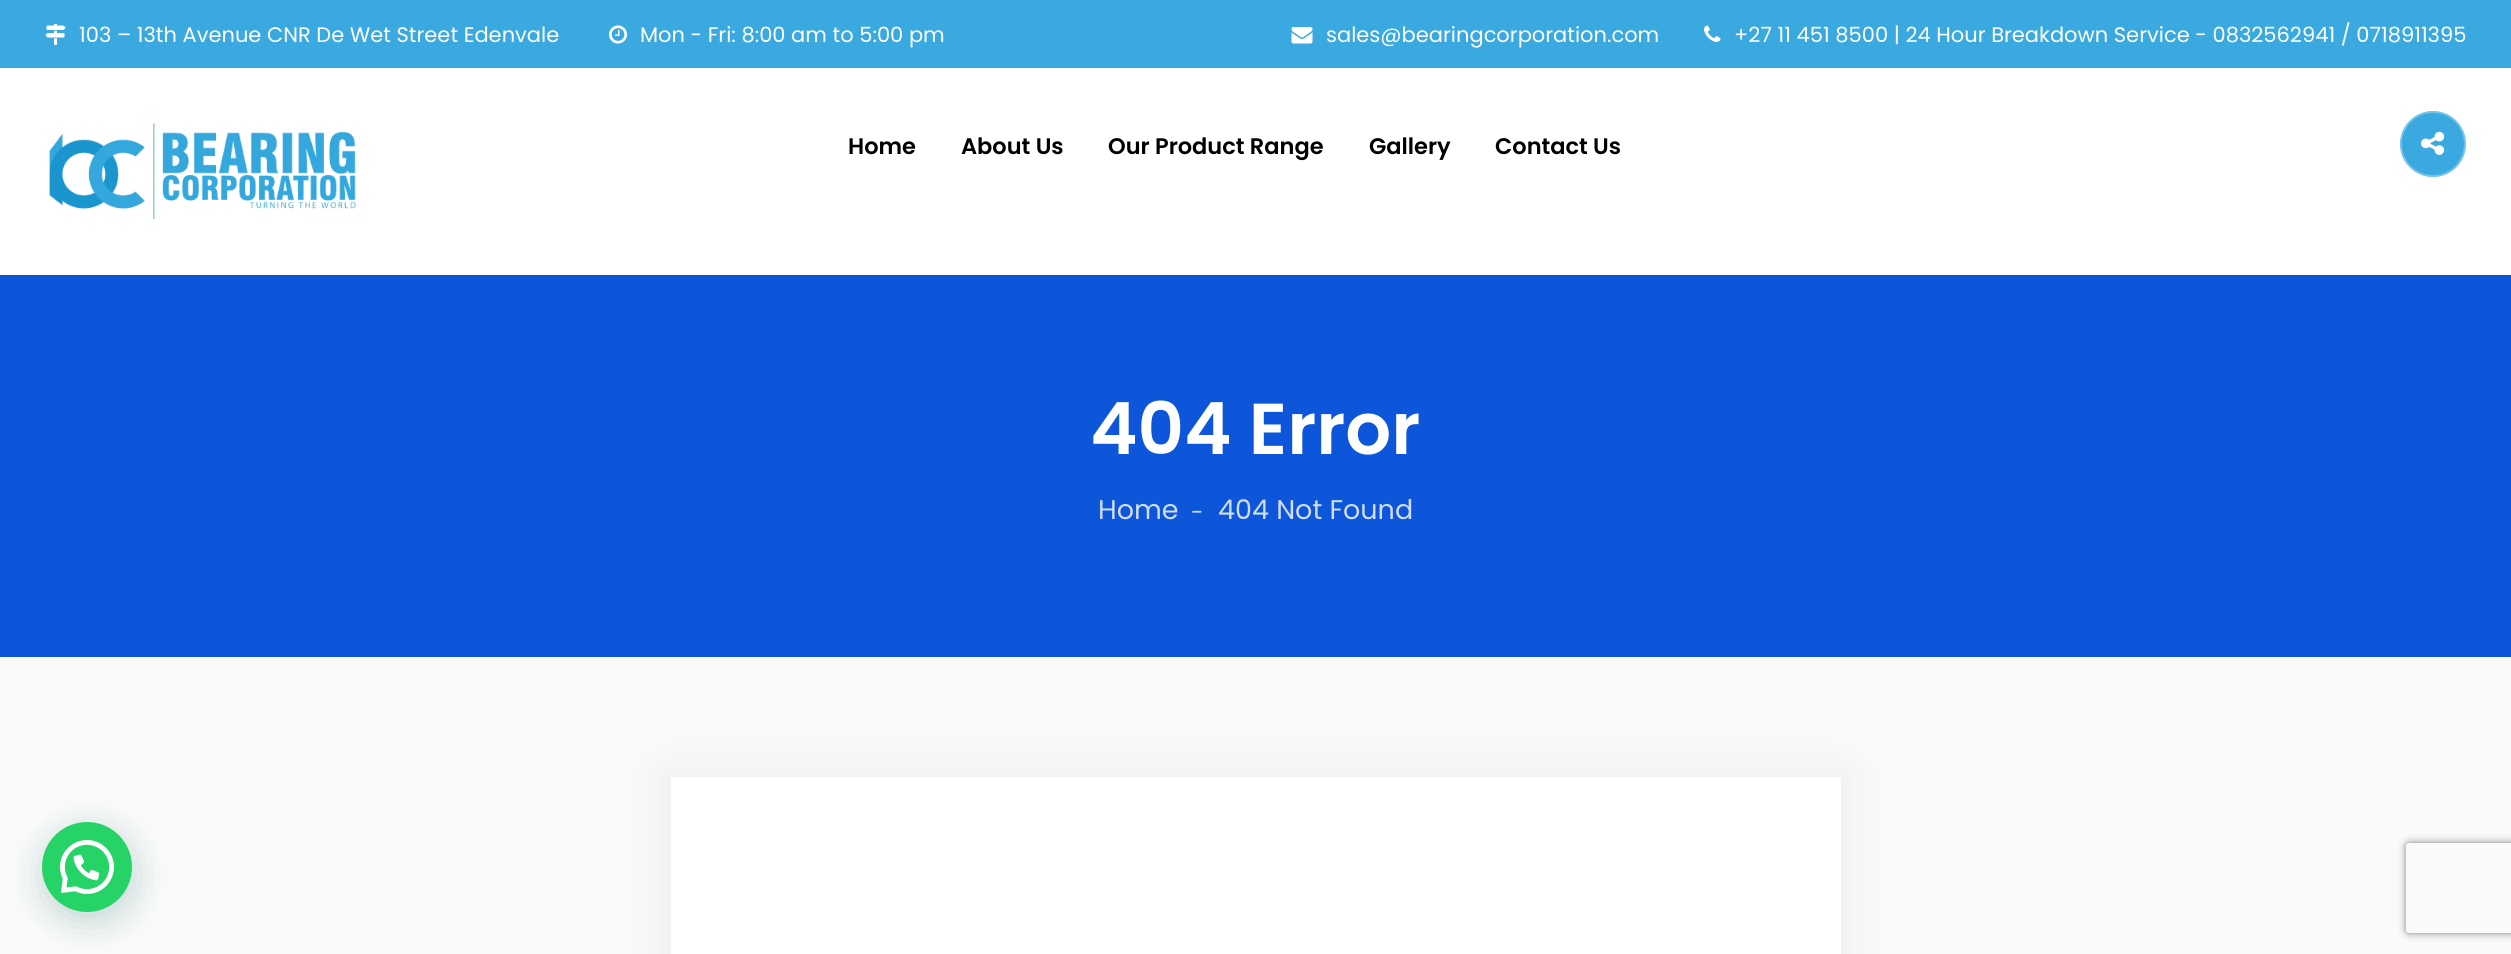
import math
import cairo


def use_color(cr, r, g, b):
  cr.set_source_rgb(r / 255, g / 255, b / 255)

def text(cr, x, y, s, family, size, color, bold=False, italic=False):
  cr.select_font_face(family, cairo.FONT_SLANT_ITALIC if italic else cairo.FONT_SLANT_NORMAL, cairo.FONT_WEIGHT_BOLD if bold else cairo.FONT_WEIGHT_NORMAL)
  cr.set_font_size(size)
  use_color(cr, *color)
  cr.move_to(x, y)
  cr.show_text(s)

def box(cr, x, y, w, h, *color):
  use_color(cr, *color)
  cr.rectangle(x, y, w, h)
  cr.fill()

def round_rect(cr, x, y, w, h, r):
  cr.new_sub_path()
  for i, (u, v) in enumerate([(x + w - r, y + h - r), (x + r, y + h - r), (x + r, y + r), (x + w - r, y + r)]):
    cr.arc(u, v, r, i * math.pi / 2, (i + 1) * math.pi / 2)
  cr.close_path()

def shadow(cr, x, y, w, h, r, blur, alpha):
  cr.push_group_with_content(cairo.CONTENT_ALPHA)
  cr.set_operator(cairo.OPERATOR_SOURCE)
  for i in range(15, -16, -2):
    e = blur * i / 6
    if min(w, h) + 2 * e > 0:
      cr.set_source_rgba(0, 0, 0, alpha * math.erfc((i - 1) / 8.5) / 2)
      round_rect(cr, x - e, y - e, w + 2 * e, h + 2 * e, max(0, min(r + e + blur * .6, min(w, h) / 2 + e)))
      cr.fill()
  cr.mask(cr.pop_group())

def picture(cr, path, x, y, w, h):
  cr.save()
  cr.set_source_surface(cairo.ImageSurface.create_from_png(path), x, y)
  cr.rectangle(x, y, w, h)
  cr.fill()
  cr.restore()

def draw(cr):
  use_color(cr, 250, 250, 250)
  cr.paint()
  box(cr, 0, 0, 2511, 68, 57, 169, 224)
  picture(cr, "img_01.png", 45, 24, 21, 21)
  picture(cr, "img_02.png", 609, 25, 18, 19)
  picture(cr, "img_03.png", 1291, 27, 22, 17)
  picture(cr, "img_04.png", 1704, 25, 17, 17)
  box(cr, 0, 275, 2511, 382, 13, 86, 217)
  use_color(cr, 0, 0, 0)
  shadow(cr, 0, 69, 2511, 207, 0, 1.5, 0.05)
  box(cr, 0, 68, 2511, 207, 255, 255, 255)
  picture(cr, "img_05.png", 49, 123, 307, 96)
  use_color(cr, 57, 169, 224)
  cr.arc(2433, 144, 33, 0, 2 * math.pi)
  cr.fill()
  cr.arc(2433, 144, 32, 0, 2 * math.pi)
  cr.set_source_rgba(1, 1, 1, 0.3)
  cr.stroke()
  picture(cr, "img_06.png", 2421, 131, 24, 24)
  use_color(cr, 0, 0, 0)
  shadow(cr, 663, 770, 1185, 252, 0, 22.5, 0.05)
  box(cr, 671, 777, 1170, 177, 255, 255, 255)
  use_color(cr, 7, 94, 84)
  shadow(cr, 44, 831, 90, 90, 45, 18, 0.24)
  use_color(cr, 37, 211, 102)
  cr.arc(87, 867, 45, 0, 2 * math.pi)
  cr.fill()
  picture(cr, "img_07.png", 60, 840, 54, 54)
  cr.save()
  cr.set_fill_rule(cairo.FILL_RULE_EVEN_ODD)
  cr.new_path()
  cr.move_to(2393, 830)
  cr.line_to(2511, 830)
  cr.line_to(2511, 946)
  cr.line_to(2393, 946)
  cr.close_path()
  cr.move_to(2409, 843)
  cr.line_to(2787, 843)
  cr.curve_to(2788.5, 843, 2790, 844.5, 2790, 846)
  cr.line_to(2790, 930)
  cr.curve_to(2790, 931.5, 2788.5, 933, 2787, 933)
  cr.line_to(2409, 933)
  cr.curve_to(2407.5, 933, 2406, 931.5, 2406, 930)
  cr.line_to(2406, 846)
  cr.curve_to(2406, 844.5, 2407.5, 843, 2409, 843)
  cr.close_path()
  cr.clip()
  use_color(cr, 128, 128, 128)
  shadow(cr, 2406, 843, 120, 90, 3, 4, 1)
  cr.restore()
  text(cr, 79, 42, "103 – 13th Avenue CNR De Wet Street Edenvale", "Poppins", 21, (255, 255, 255))
  text(cr, 640, 42, "Mon - Fri: 8:00 am to 5:00 pm", "Poppins", 21, (255, 255, 255))
  text(cr, 1326, 42, "sales@bearingcorporation.com", "Poppins", 21, (255, 255, 255))
  text(cr, 1734, 42, "+27 11 451 8500 | 24 Hour Breakdown Service - 0832562941 / 0718911395", "Poppins", 21, (255, 255, 255))
  text(cr, 848, 154, "Home", "Poppins SemiBold", 22.5, (0, 0, 0))
  text(cr, 961, 154, "About Us", "Poppins SemiBold", 22.5, (0, 0, 0))
  text(cr, 1108, 154, "Our Product Range", "Poppins SemiBold", 22.5, (0, 0, 0))
  text(cr, 1369, 154, "Gallery", "Poppins SemiBold", 22.5, (0, 0, 0))
  text(cr, 1495, 154, "Contact Us", "Poppins SemiBold", 22.5, (0, 0, 0))
  text(cr, 1090, 454, "404 Error", "Poppins SemiBold", 72, (255, 255, 255))
  text(cr, 1098, 519, "Home", "Poppins", 27, (207, 221, 247))
  text(cr, 1191, 520, "-", "Poppins", 22.5, (207, 221, 247))
  text(cr, 1218, 519, "404 Not Found", "Poppins", 27, (207, 221, 247))


surface = cairo.ImageSurface(cairo.FORMAT_RGB24, 2511, 954)
cr = cairo.Context(surface)
options = cairo.FontOptions()
options.set_hint_metrics(cairo.HINT_METRICS_OFF)
options.set_hint_style(cairo.HINT_STYLE_NONE)
cr.set_font_options(options)
cr.set_miter_limit(4)
draw(cr)
surface.write_to_png("out.png")
